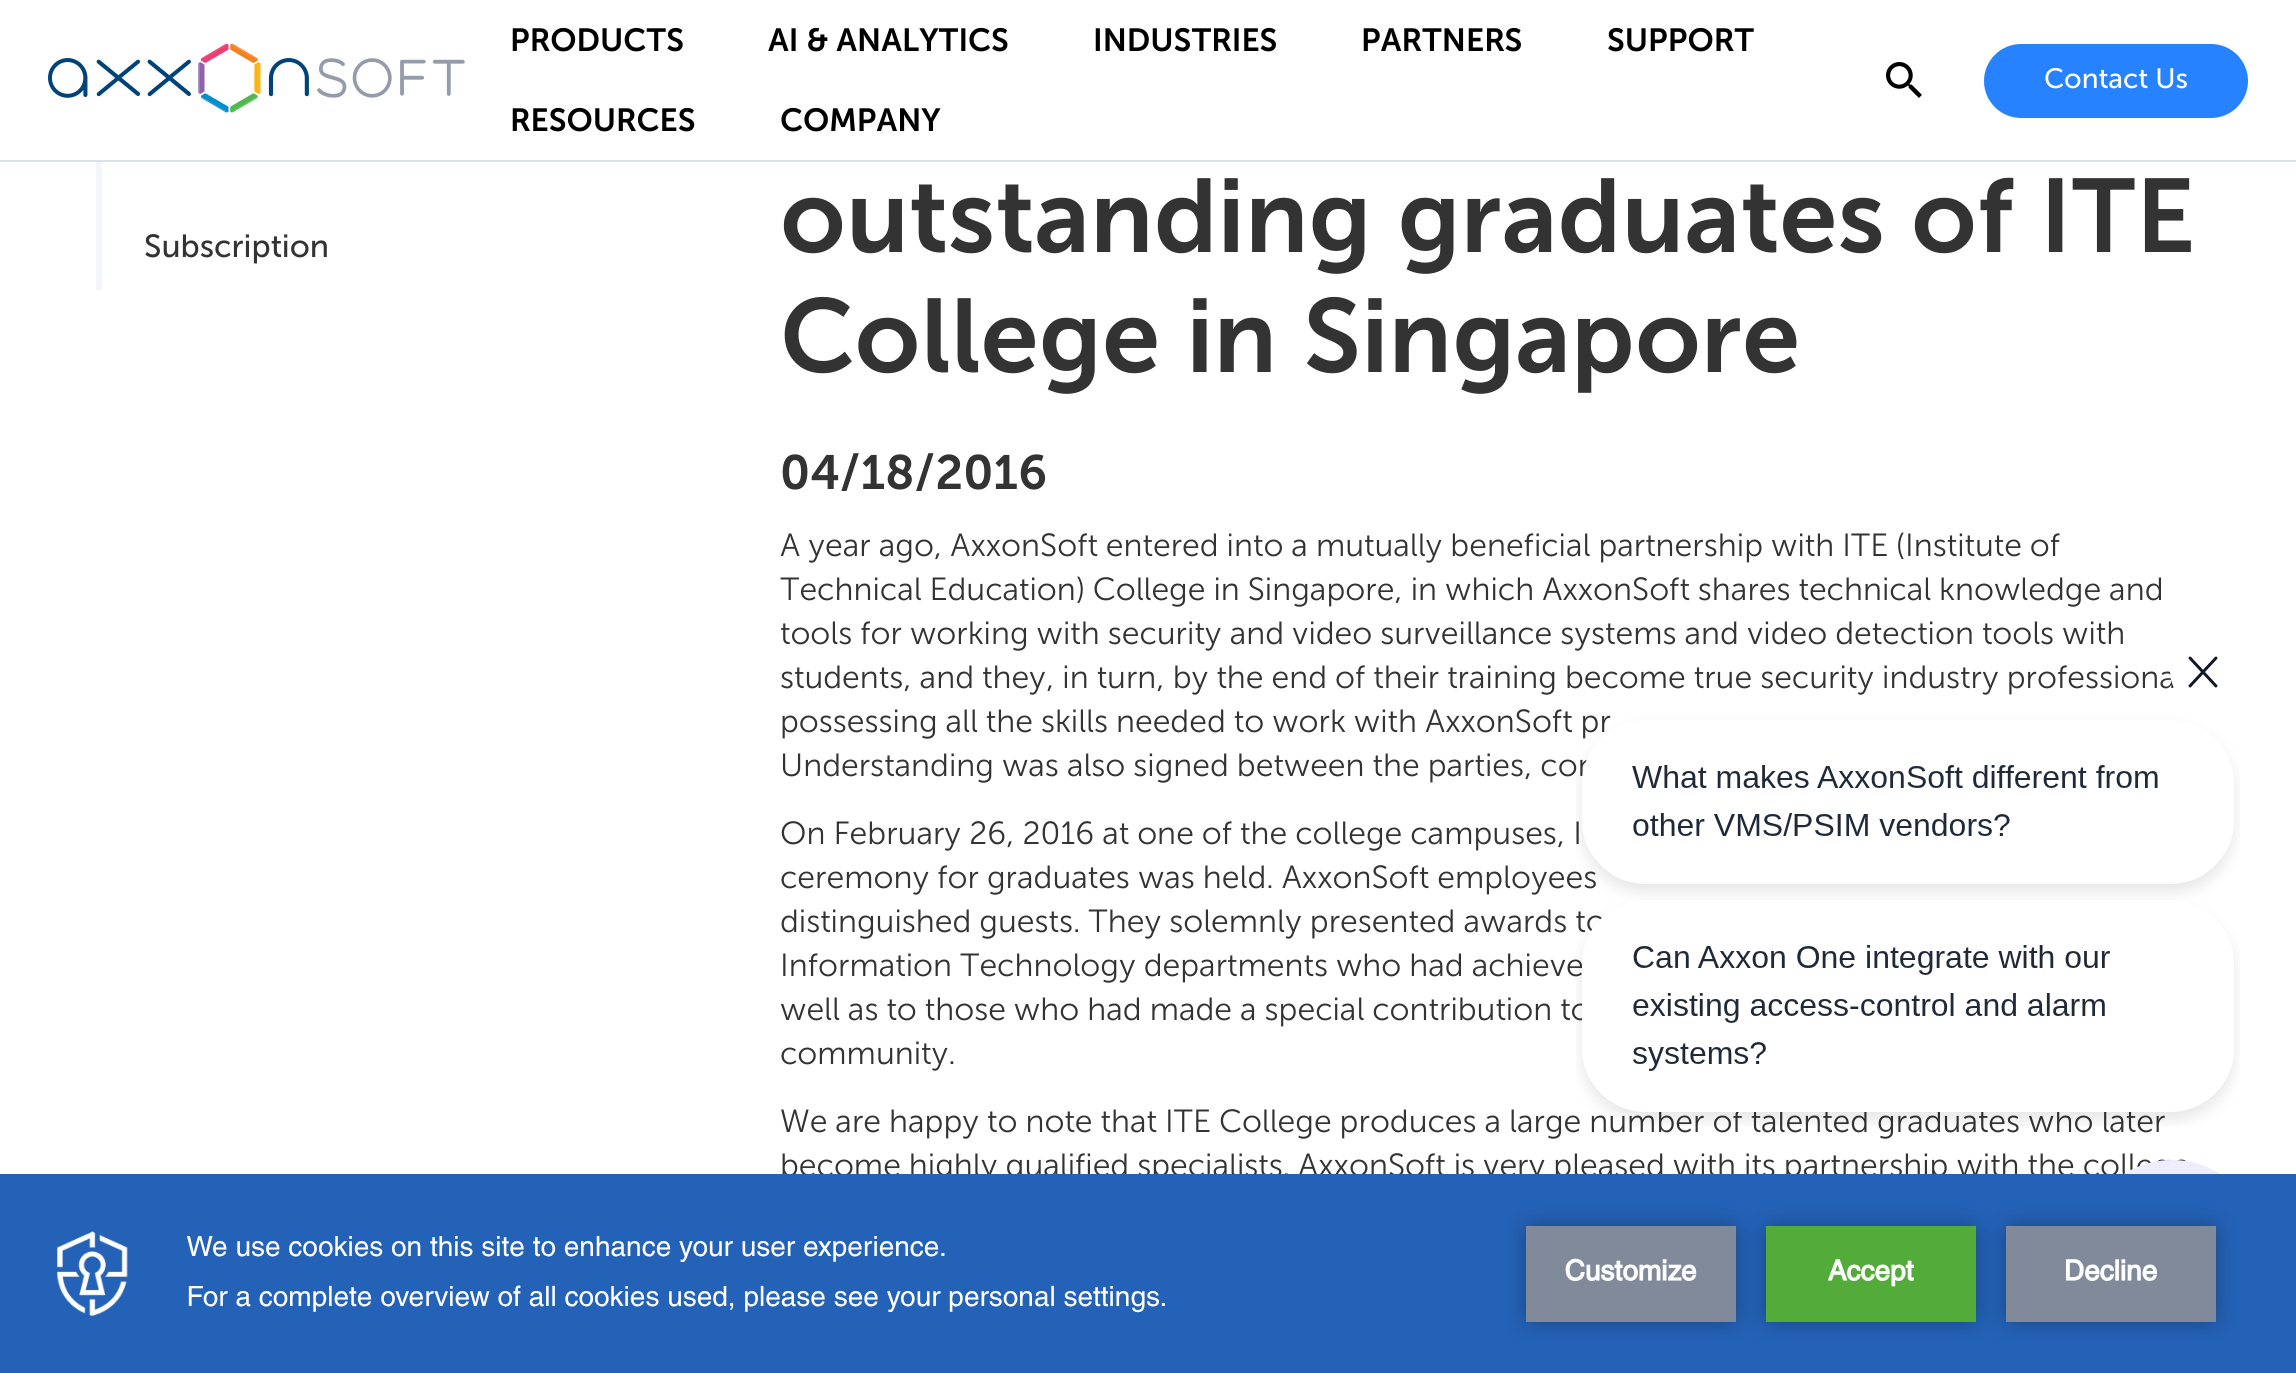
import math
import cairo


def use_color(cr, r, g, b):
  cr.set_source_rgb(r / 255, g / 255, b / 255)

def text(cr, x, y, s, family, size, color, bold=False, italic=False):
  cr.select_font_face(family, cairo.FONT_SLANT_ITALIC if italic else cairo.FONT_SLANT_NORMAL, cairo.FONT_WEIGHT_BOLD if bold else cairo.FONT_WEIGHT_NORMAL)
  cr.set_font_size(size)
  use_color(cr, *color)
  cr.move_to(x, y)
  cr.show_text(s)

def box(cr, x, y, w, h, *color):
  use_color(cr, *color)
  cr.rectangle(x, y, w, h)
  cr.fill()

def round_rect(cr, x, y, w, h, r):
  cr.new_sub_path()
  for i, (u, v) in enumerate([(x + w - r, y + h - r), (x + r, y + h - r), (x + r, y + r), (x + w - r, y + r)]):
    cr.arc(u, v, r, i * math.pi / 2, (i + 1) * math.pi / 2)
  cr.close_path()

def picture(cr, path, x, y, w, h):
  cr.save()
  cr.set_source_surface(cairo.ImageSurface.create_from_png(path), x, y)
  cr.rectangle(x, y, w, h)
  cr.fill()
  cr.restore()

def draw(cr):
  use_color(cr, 255, 255, 255)
  cr.paint()
  picture(cr, "img_01.png", 48, 43, 417, 70)
  picture(cr, "img_02.png", 1886, 62, 36, 36)
  use_color(cr, 39, 130, 255)
  round_rect(cr, 1984, 44, 264, 74, 37)
  cr.fill()
  box(cr, 0, 160, 2296, 2, 217, 225, 235)
  box(cr, 96, 162, 6, 128, 243, 245, 248)
  text(cr, 510, 51, "PRODUCTS", "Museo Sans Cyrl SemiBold", 32, (0, 0, 0))
  text(cr, 768, 51, "AI & ANALYTICS", "Museo Sans Cyrl SemiBold", 32, (0, 0, 0))
  text(cr, 1093, 51, "INDUSTRIES", "Museo Sans Cyrl SemiBold", 32, (0, 0, 0))
  text(cr, 1361, 51, "PARTNERS", "Museo Sans Cyrl SemiBold", 32, (0, 0, 0))
  text(cr, 1607, 51, "SUPPORT", "Museo Sans Cyrl SemiBold", 32, (0, 0, 0))
  text(cr, 510, 131, "RESOURCES", "Museo Sans Cyrl SemiBold", 32, (0, 0, 0))
  text(cr, 780, 131, "COMPANY", "Museo Sans Cyrl SemiBold", 32, (0, 0, 0))
  text(cr, 2044, 88, "Contact Us", "Museo Sans Cyrl", 28, (255, 255, 255))
  text(cr, 144, 257, "Subscription", "Museo Sans Cyrl", 32, (51, 51, 51))
  text(cr, 780, 252, "outstanding graduates of ITE", "Museo Sans Cyrl SemiBold", 104, (51, 51, 51))
  text(cr, 780, 372, "College in Singapore", "Museo Sans Cyrl SemiBold", 104, (51, 51, 51))
  text(cr, 780, 489, "04/18/2016", "Museo Sans Cyrl SemiBold", 48, (51, 51, 51))
  text(cr, 780, 556, "A year ago, AxxonSoft entered into a mutually beneficial partnership with ITE (Institute of", "Museo Sans Cyrl Light", 32, (51, 51, 51))
  text(cr, 780, 600, "Technical Education) College in Singapore, in which AxxonSoft shares technical knowledge and", "Museo Sans Cyrl Light", 32, (51, 51, 51))
  text(cr, 780, 644, "tools for working with security and video surveillance systems and video detection tools with", "Museo Sans Cyrl Light", 32, (51, 51, 51))
  text(cr, 780, 688, "students, and they, in turn, by the end of their training become true security industry professiona", "Museo Sans Cyrl Light", 32, (51, 51, 51))
  text(cr, 780, 732, "possessing all the skills needed to work with AxxonSoft pr", "Museo Sans Cyrl Light", 32, (51, 51, 51))
  text(cr, 780, 776, "Understanding was also signed between the parties, con", "Museo Sans Cyrl Light", 32, (51, 51, 51))
  text(cr, 780, 844, "On February 26, 2016 at one of the college campuses, I", "Museo Sans Cyrl Light", 32, (51, 51, 51))
  text(cr, 780, 888, "ceremony for graduates was held. AxxonSoft employees", "Museo Sans Cyrl Light", 32, (51, 51, 51))
  text(cr, 780, 932, "distinguished guests. They solemnly presented awards to", "Museo Sans Cyrl Light", 32, (51, 51, 51))
  text(cr, 780, 976, "Information Technology departments who had achieve", "Museo Sans Cyrl Light", 32, (51, 51, 51))
  text(cr, 780, 1020, "well as to those who had made a special contribution to", "Museo Sans Cyrl Light", 32, (51, 51, 51))
  text(cr, 780, 1064, "community.", "Museo Sans Cyrl Light", 32, (51, 51, 51))
  text(cr, 780, 1132, "We are happy to note that ITE College produces a large number of talented graduates who later", "Museo Sans Cyrl Light", 32, (51, 51, 51))
  text(cr, 780, 1176, "become highly qualified specialists. AxxonSoft is very pleased with its partnership with the college", "Museo Sans Cyrl Light", 32, (51, 51, 51))
  picture(cr, "img_03.png", 1576, 656, 664, 470)
  cr.arc(2172, 1250, 83, 0, 2 * math.pi)
  use_color(cr, 238, 236, 254)
  cr.set_line_width(14)
  cr.stroke()
  picture(cr, "img_04.png", 0, 1174, 2296, 199)


surface = cairo.ImageSurface(cairo.FORMAT_RGB24, 2296, 1373)
cr = cairo.Context(surface)
options = cairo.FontOptions()
options.set_hint_metrics(cairo.HINT_METRICS_OFF)
options.set_hint_style(cairo.HINT_STYLE_NONE)
cr.set_font_options(options)
cr.set_miter_limit(4)
draw(cr)
surface.write_to_png("out.png")
